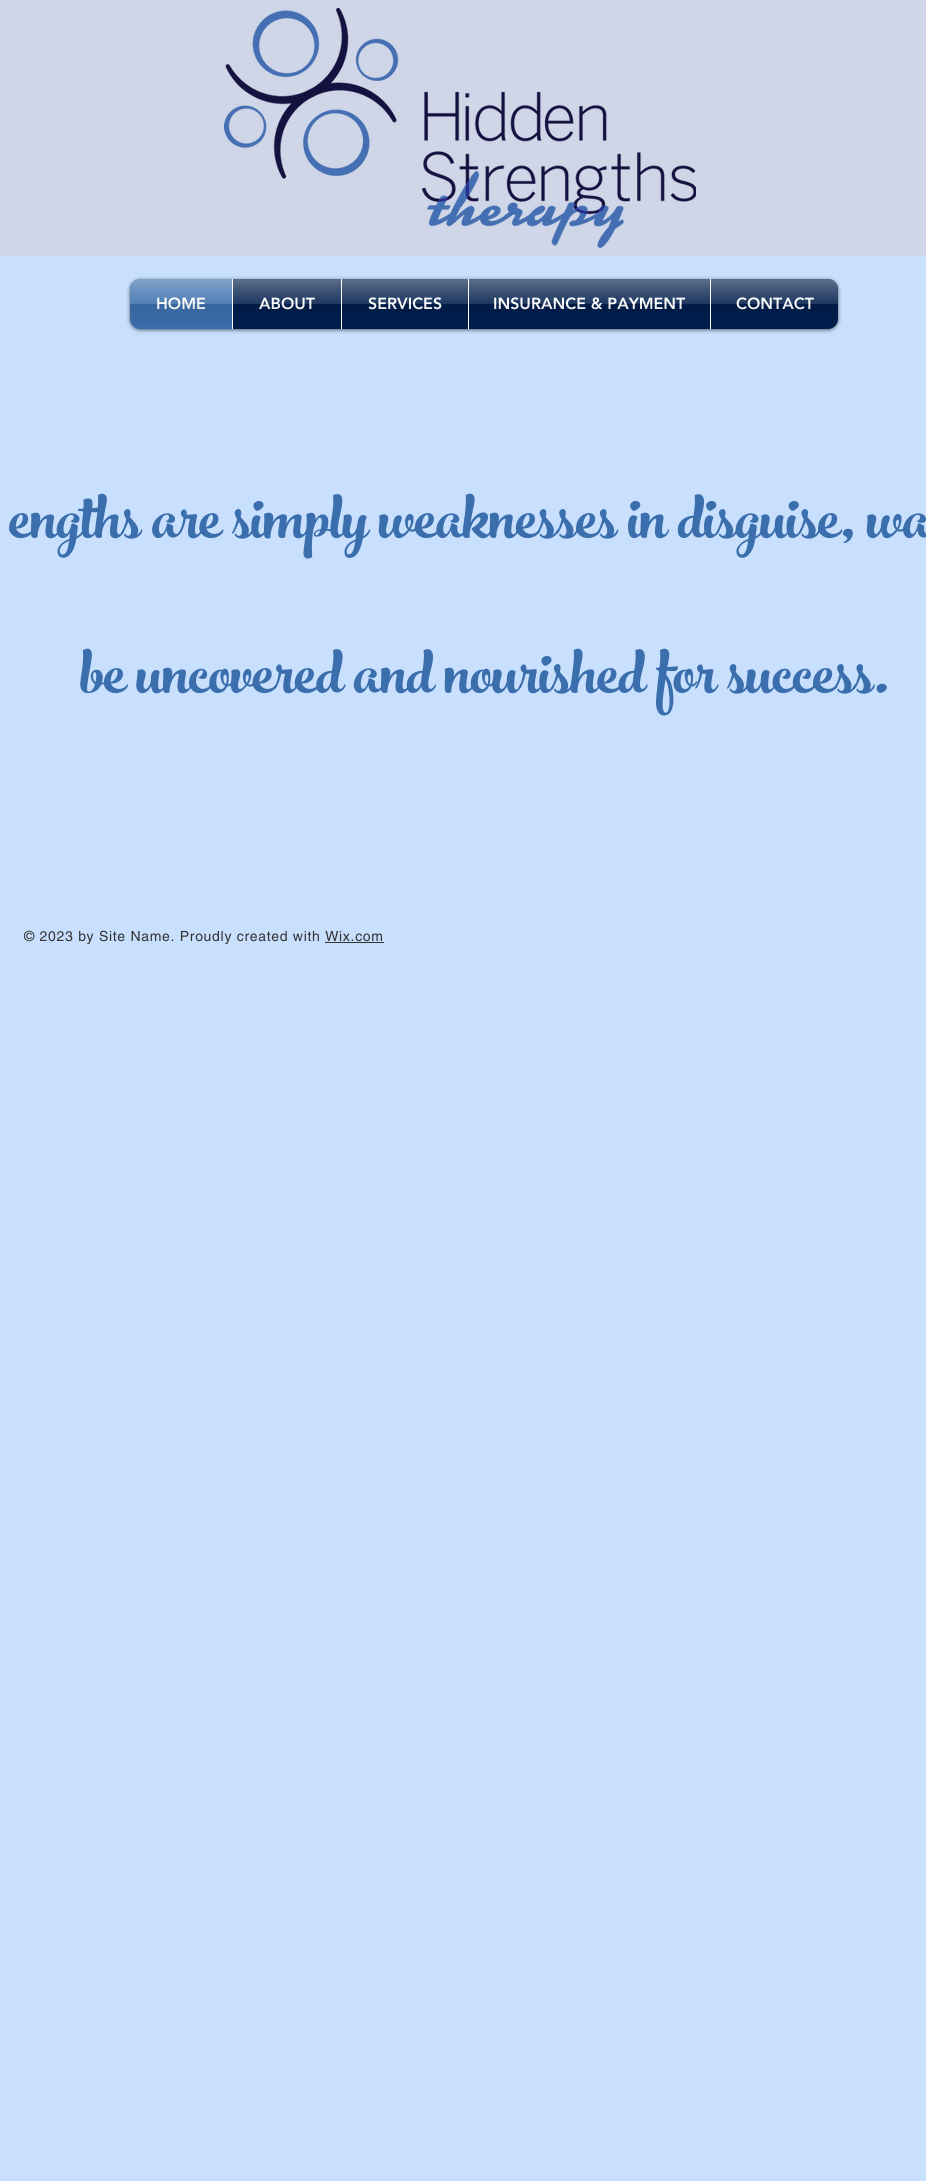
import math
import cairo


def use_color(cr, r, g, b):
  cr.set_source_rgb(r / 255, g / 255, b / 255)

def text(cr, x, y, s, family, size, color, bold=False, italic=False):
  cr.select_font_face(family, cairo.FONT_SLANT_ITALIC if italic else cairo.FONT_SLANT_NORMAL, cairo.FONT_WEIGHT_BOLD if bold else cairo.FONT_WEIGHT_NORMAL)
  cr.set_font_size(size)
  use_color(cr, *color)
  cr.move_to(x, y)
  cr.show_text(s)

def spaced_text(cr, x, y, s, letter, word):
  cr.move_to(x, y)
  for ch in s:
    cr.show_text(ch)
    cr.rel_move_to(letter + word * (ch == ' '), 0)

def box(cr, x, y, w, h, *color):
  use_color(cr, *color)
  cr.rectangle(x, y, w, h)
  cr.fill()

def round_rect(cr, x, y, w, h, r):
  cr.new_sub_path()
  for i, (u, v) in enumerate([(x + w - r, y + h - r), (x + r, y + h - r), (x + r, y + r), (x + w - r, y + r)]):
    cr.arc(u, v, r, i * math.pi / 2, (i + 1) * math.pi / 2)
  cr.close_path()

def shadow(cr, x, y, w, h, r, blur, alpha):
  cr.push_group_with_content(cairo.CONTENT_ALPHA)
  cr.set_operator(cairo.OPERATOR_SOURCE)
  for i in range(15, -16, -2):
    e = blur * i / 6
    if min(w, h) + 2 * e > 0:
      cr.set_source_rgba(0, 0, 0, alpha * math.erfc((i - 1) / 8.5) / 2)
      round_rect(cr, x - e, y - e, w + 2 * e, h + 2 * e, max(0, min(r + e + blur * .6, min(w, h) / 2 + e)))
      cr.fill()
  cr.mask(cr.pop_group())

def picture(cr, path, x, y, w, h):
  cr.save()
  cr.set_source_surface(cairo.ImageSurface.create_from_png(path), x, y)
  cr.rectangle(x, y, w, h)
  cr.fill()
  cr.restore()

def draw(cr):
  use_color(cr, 200, 224, 254)
  cr.paint()
  box(cr, 0, 0, 926, 256, 207, 214, 232)
  picture(cr, "img_01.png", 224, 8, 472, 240)
  use_color(cr, 0, 0, 0)
  shadow(cr, 130, 280, 708, 50, 10, 2, 0.6)
  picture(cr, "img_02.png", 130, 279, 708, 10)
  use_color(cr, 59, 110, 172)
  cr.new_path()
  cr.move_to(140, 279)
  cr.line_to(232, 279)
  cr.line_to(232, 329)
  cr.line_to(140, 329)
  cr.curve_to(134.5, 329, 130, 324.5, 130, 319)
  cr.line_to(130, 289)
  cr.curve_to(130, 283.5, 134.5, 279, 140, 279)
  cr.close_path()
  cr.fill()
  box(cr, 233, 279, 108, 50, 0, 29, 75)
  box(cr, 232, 279, 1, 50, 255, 255, 255)
  box(cr, 342, 279, 126, 50, 0, 29, 75)
  box(cr, 341, 279, 1, 50, 255, 255, 255)
  box(cr, 469, 279, 241, 50, 0, 29, 75)
  box(cr, 468, 279, 1, 50, 255, 255, 255)
  use_color(cr, 0, 29, 75)
  cr.new_path()
  cr.move_to(710, 279)
  cr.line_to(828, 279)
  cr.curve_to(833.5, 279, 838, 283.5, 838, 289)
  cr.line_to(838, 319)
  cr.curve_to(838, 324.5, 833.5, 329, 828, 329)
  cr.line_to(710, 329)
  cr.close_path()
  cr.fill()
  box(cr, 710, 279, 1, 50, 255, 255, 255)
  box(cr, 325, 942, 59, 1, 51, 51, 51)
  text(cr, 156, 309, "HOME", "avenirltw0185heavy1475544 Black", 16, (255, 255, 255))
  picture(cr, "img_03.png", 130, 279, 102, 46)
  text(cr, 259, 309, "ABOUT", "avenirltw0185heavy1475544 Black", 16, (255, 255, 255))
  picture(cr, "img_04.png", 233, 279, 108, 34)
  text(cr, 368, 309, "SERVICES", "avenirltw0185heavy1475544 Black", 16, (255, 255, 255))
  picture(cr, "img_05.png", 342, 279, 126, 34)
  text(cr, 493, 309, "INSURANCE & PAYMENT", "avenirltw0185heavy1475544 Black", 16, (255, 255, 255))
  picture(cr, "img_06.png", 469, 279, 241, 34)
  text(cr, 736, 309, "CONTACT", "avenirltw0185heavy1475544 Black", 16, (255, 255, 255))
  picture(cr, "img_07.png", 711, 279, 127, 34)
  text(cr, 9, 538, "engths are simply weaknesses in disguise, wa", "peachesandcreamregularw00", 93, (59, 110, 172))
  text(cr, 80, 693, "be uncovered and nourished for success.", "peachesandcreamregularw00", 93, (59, 110, 172))
  cr.select_font_face("helvetica")
  cr.set_font_size(14)
  use_color(cr, 51, 51, 51)
  spaced_text(cr, 24, 941, "© 2023 by Site Name. Proudly created with Wix.com", 0.7, 0)


surface = cairo.ImageSurface(cairo.FORMAT_RGB24, 926, 2181)
cr = cairo.Context(surface)
options = cairo.FontOptions()
options.set_hint_metrics(cairo.HINT_METRICS_OFF)
options.set_hint_style(cairo.HINT_STYLE_NONE)
cr.set_font_options(options)
cr.set_miter_limit(4)
draw(cr)
surface.write_to_png("out.png")
